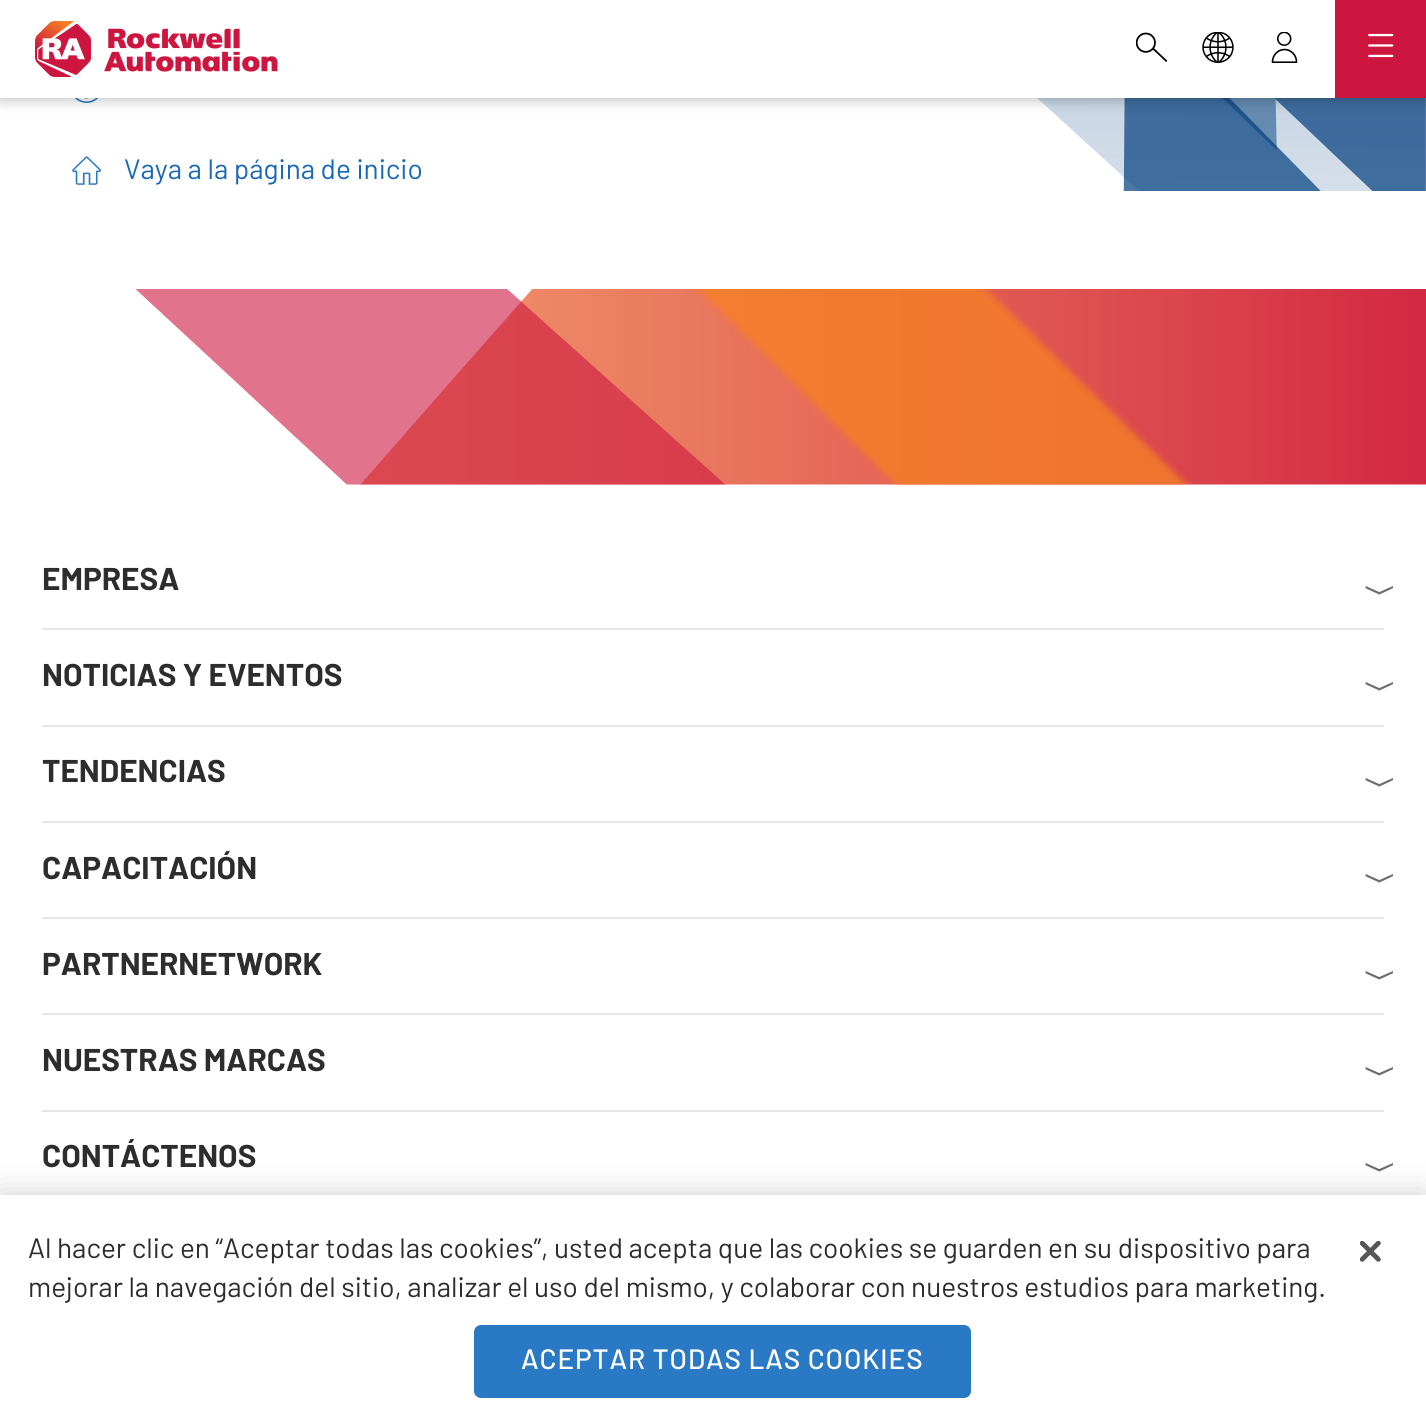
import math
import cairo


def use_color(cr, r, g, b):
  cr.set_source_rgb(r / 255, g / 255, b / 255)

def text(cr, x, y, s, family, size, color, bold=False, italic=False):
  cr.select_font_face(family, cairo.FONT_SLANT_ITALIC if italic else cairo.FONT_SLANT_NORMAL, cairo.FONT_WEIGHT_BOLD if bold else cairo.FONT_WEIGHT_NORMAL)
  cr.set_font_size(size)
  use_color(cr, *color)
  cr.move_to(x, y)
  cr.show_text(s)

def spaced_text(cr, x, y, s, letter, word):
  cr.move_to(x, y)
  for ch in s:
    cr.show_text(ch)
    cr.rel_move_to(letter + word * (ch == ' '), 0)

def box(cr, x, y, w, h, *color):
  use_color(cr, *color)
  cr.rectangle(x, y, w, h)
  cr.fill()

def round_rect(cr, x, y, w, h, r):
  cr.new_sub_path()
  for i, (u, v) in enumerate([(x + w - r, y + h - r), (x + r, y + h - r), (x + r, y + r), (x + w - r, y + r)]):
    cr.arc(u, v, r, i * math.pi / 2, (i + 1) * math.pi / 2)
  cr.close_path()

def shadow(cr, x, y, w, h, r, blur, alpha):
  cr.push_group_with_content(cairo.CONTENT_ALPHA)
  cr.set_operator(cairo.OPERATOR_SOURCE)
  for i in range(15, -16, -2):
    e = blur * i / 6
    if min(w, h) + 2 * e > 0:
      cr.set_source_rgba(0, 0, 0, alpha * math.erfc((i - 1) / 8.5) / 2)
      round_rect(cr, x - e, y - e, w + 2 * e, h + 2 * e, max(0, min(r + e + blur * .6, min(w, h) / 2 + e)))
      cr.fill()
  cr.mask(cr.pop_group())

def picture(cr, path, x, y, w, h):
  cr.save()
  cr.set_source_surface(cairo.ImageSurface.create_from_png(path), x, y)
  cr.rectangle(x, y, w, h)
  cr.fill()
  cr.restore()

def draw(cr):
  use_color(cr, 255, 255, 255)
  cr.paint()
  picture(cr, "img_06.png", 75, 98, 24, 5)
  picture(cr, "img_08.png", 1037, 98, 389, 93)
  use_color(cr, 0, 0, 0)
  shadow(cr, 0, 2, 1426, 98, 0, 7, 0.25)
  box(cr, 0, 0, 1335, 98, 255, 255, 255)
  picture(cr, "img_01.png", 35, 21, 243, 56)
  picture(cr, "img_02.png", 1136, 32, 31, 30)
  picture(cr, "img_03.png", 1202, 32, 32, 31)
  picture(cr, "img_04.png", 1271, 32, 27, 31)
  box(cr, 1335, 0, 91, 98, 205, 22, 63)
  picture(cr, "img_05.png", 1368, 33, 26, 25)
  picture(cr, "img_07.png", 72, 156, 29, 29)
  picture(cr, "img_09.png", 135, 289, 1291, 196)
  box(cr, 42, 628, 1342, 2, 229, 230, 233)
  box(cr, 42, 725, 1342, 2, 229, 230, 233)
  box(cr, 42, 821, 1342, 2, 229, 230, 233)
  box(cr, 42, 917, 1342, 2, 229, 230, 233)
  box(cr, 42, 1013, 1342, 2, 229, 230, 233)
  box(cr, 42, 1110, 1342, 2, 229, 230, 233)
  use_color(cr, 0, 0, 0)
  shadow(cr, 0, 1195, 1426, 231, 0, 16, 0.2)
  box(cr, 0, 1195, 1426, 231, 255, 255, 255)
  use_color(cr, 42, 121, 196)
  round_rect(cr, 476.5, 1327.5, 492, 68, 4.5)
  cr.fill_preserve()
  cr.set_line_width(5)
  cr.stroke()
  picture(cr, "img_10.png", 1360, 1241, 21, 21)
  text(cr, 124, 179, "Vaya a la página de inicio", "Barlow", 28, (25, 104, 179))
  text(cr, 42, 590, "EMPRESA", "Barlow", 31.5, (45, 45, 45), bold=True)
  cr.save()
  cr.translate(1370, 585)
  cr.rotate(90 * math.pi / 180)
  text(cr, 0, 0, "〉", "FreeSans", 31.5, (109, 110, 113))
  cr.restore()
  text(cr, 42, 686, "NOTICIAS Y EVENTOS", "Barlow", 31.5, (45, 45, 45), bold=True)
  cr.save()
  cr.translate(1370, 681)
  cr.rotate(90 * math.pi / 180)
  text(cr, 0, 0, "〉", "FreeSans", 31.5, (109, 110, 113))
  cr.restore()
  text(cr, 42, 782, "TENDENCIAS", "Barlow", 31.5, (45, 45, 45), bold=True)
  cr.save()
  cr.translate(1370, 777)
  cr.rotate(90 * math.pi / 180)
  text(cr, 0, 0, "〉", "FreeSans", 31.5, (109, 110, 113))
  cr.restore()
  text(cr, 42, 879, "CAPACITACIÓN", "Barlow", 31.5, (45, 45, 45), bold=True)
  cr.save()
  cr.translate(1370, 873)
  cr.rotate(90 * math.pi / 180)
  text(cr, 0, 0, "〉", "FreeSans", 31.5, (109, 110, 113))
  cr.restore()
  text(cr, 42, 975, "PARTNERNETWORK", "Barlow", 31.5, (45, 45, 45), bold=True)
  cr.save()
  cr.translate(1370, 970)
  cr.rotate(90 * math.pi / 180)
  text(cr, 0, 0, "〉", "FreeSans", 31.5, (109, 110, 113))
  cr.restore()
  text(cr, 42, 1071, "NUESTRAS MARCAS", "Barlow", 31.5, (45, 45, 45), bold=True)
  cr.save()
  cr.translate(1370, 1066)
  cr.rotate(90 * math.pi / 180)
  text(cr, 0, 0, "〉", "FreeSans", 31.5, (109, 110, 113))
  cr.restore()
  text(cr, 42, 1167, "CONTÁCTENOS", "Barlow", 31.5, (45, 45, 45), bold=True)
  cr.save()
  cr.translate(1370, 1162)
  cr.rotate(90 * math.pi / 180)
  text(cr, 0, 0, "〉", "FreeSans", 31.5, (109, 110, 113))
  cr.restore()
  text(cr, 28, 1258, "Al hacer clic en “Aceptar todas las cookies”, usted acepta que las cookies se guarden en su dispositivo para", "Barlow", 28, (45, 45, 45))
  text(cr, 28, 1297, "mejorar la navegación del sitio, analizar el uso del mismo, y colaborar con nuestros estudios para marketing.", "Barlow", 28, (45, 45, 45))
  cr.select_font_face("Barlow Medium")
  use_color(cr, 255, 255, 255)
  spaced_text(cr, 521, 1369, "ACEPTAR TODAS LAS COOKIES", 0.9, 0)


surface = cairo.ImageSurface(cairo.FORMAT_RGB24, 1426, 1426)
cr = cairo.Context(surface)
options = cairo.FontOptions()
options.set_hint_metrics(cairo.HINT_METRICS_OFF)
options.set_hint_style(cairo.HINT_STYLE_NONE)
cr.set_font_options(options)
cr.set_miter_limit(4)
draw(cr)
surface.write_to_png("out.png")
